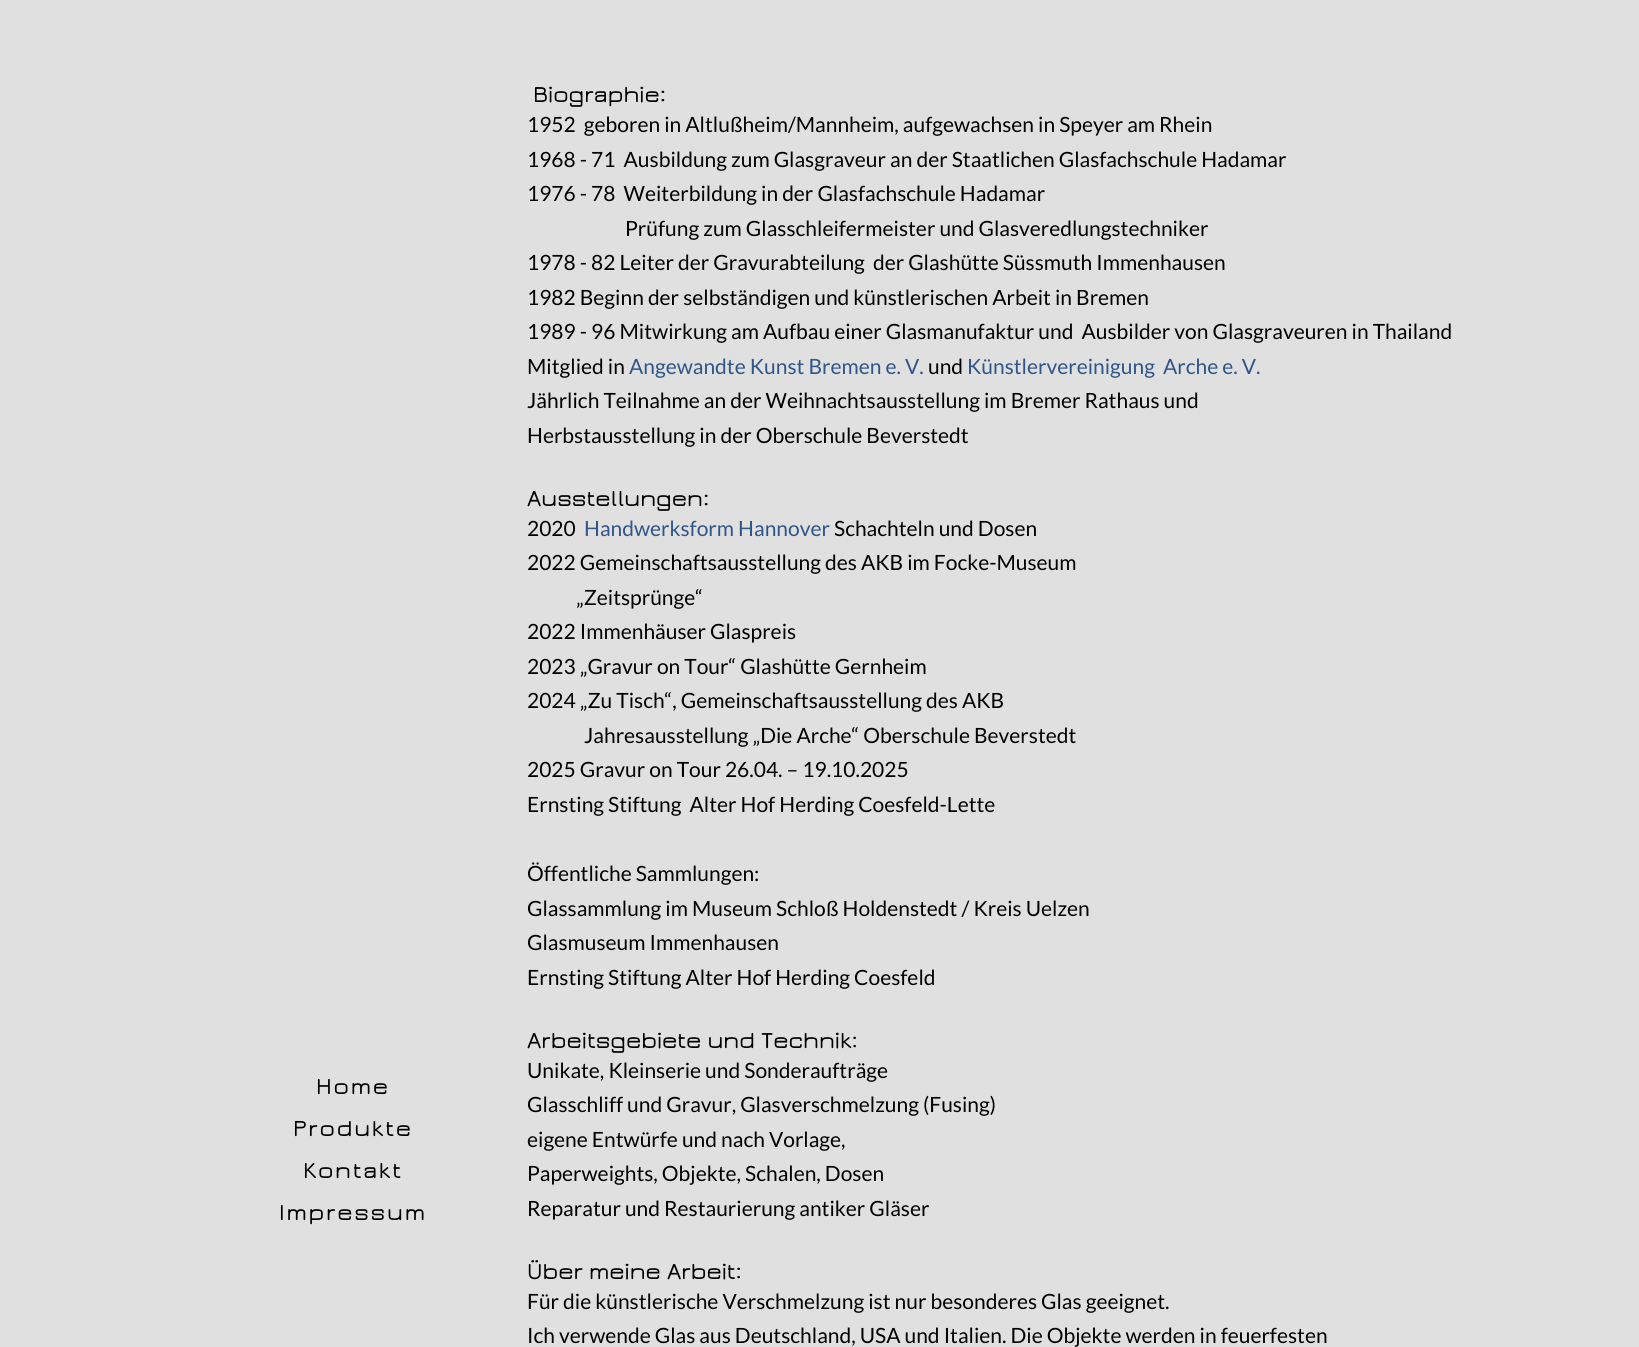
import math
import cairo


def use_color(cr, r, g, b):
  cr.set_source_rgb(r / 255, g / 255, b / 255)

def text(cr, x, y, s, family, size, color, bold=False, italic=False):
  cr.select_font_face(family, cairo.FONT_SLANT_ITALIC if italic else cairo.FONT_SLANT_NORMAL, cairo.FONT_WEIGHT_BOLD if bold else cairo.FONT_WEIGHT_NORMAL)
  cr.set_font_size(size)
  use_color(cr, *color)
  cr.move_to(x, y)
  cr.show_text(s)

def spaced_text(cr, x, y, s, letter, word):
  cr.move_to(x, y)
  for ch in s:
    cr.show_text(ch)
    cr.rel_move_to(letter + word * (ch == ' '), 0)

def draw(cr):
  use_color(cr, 224, 224, 224)
  cr.paint()
  cr.select_font_face("Jura SemiBold")
  cr.set_font_size(24)
  use_color(cr, 0, 0, 0)
  spaced_text(cr, 316, 1094, "Home", 1.75, 0)
  spaced_text(cr, 293, 1136, "Produkte", 1.75, 0)
  spaced_text(cr, 303, 1178, "Kontakt", 1.75, 0)
  spaced_text(cr, 279, 1220, "Impressum", 1.75, 0)
  text(cr, 533, 102, "Biographie:", "Jura SemiBold", 24, (0, 0, 0))
  text(cr, 527, 132, "1952  geboren in Altlußheim/Mannheim, aufgewachsen in Speyer am Rhein", "Lato", 21, (0, 0, 0))
  text(cr, 527, 167, "1968 - 71  Ausbildung zum Glasgraveur an der Staatlichen Glasfachschule Hadamar", "Lato", 21, (0, 0, 0))
  text(cr, 527, 201, "1976 - 78  Weiterbildung in der Glasfachschule Hadamar", "Lato", 21, (0, 0, 0))
  text(cr, 625, 236, "Prüfung zum Glasschleifermeister und Glasveredlungstechniker", "Lato", 21, (0, 0, 0))
  text(cr, 527, 270, "1978 - 82 Leiter der Gravurabteilung  der Glashütte Süssmuth Immenhausen", "Lato", 21, (0, 0, 0))
  text(cr, 527, 305, "1982 Beginn der selbständigen und künstlerischen Arbeit in Bremen", "Lato", 21, (0, 0, 0))
  text(cr, 527, 339, "1989 - 96 Mitwirkung am Aufbau einer Glasmanufaktur und  Ausbilder von Glasgraveuren in Thailand", "Lato", 21, (0, 0, 0))
  text(cr, 527, 374, "Mitglied in", "Lato", 21, (0, 0, 0))
  text(cr, 629, 374, "Angewandte Kunst Bremen e. V.", "Lato", 21, (47, 85, 137))
  text(cr, 928, 374, "und", "Lato", 21, (0, 0, 0))
  text(cr, 967, 374, "Künstlervereinigung  Arche e. V.", "Lato", 21, (47, 85, 137))
  text(cr, 527, 408, "Jährlich Teilnahme an der Weihnachtsausstellung im Bremer Rathaus und", "Lato", 21, (0, 0, 0))
  text(cr, 527, 443, "Herbstausstellung in der Oberschule Beverstedt", "Lato", 21, (0, 0, 0))
  text(cr, 527, 506, "Ausstellungen:", "Jura SemiBold", 24, (0, 0, 0))
  text(cr, 527, 536, "2020", "Lato", 21, (0, 0, 0))
  text(cr, 584, 536, "Handwerksform Hannover", "Lato", 21, (47, 85, 137))
  text(cr, 834, 536, "Schachteln und Dosen", "Lato", 21, (0, 0, 0))
  text(cr, 527, 570, "2022 Gemeinschaftsausstellung des AKB im Focke-Museum", "Lato", 21, (0, 0, 0))
  text(cr, 576, 605, "„Zeitsprünge“", "Lato", 21, (0, 0, 0))
  text(cr, 527, 639, "2022 Immenhäuser Glaspreis", "Lato", 21, (0, 0, 0))
  text(cr, 527, 674, "2023 „Gravur on Tour“ Glashütte Gernheim", "Lato", 21, (0, 0, 0))
  text(cr, 527, 708, "2024 „Zu Tisch“, Gemeinschaftsausstellung des AKB", "Lato", 21, (0, 0, 0))
  text(cr, 584, 743, "Jahresausstellung „Die Arche“ Oberschule Beverstedt", "Lato", 21, (0, 0, 0))
  text(cr, 527, 777, "2025 Gravur on Tour 26.04. – 19.10.2025", "Lato", 21, (0, 0, 0))
  text(cr, 527, 812, "Ernsting Stiftung  Alter Hof Herding Coesfeld-Lette", "Lato", 21, (0, 0, 0))
  text(cr, 527, 881, "Öffentliche Sammlungen:", "Lato", 21, (0, 0, 0))
  text(cr, 527, 916, "Glassammlung im Museum Schloß Holdenstedt / Kreis Uelzen", "Lato", 21, (0, 0, 0))
  text(cr, 527, 950, "Glasmuseum Immenhausen", "Lato", 21, (0, 0, 0))
  text(cr, 527, 985, "Ernsting Stiftung Alter Hof Herding Coesfeld", "Lato", 21, (0, 0, 0))
  text(cr, 527, 1048, "Arbeitsgebiete und Technik:", "Jura SemiBold", 24, (0, 0, 0))
  text(cr, 527, 1078, "Unikate, Kleinserie und Sonderaufträge", "Lato", 21, (0, 0, 0))
  text(cr, 527, 1112, "Glasschliff und Gravur, Glasverschmelzung (Fusing)", "Lato", 21, (0, 0, 0))
  text(cr, 527, 1147, "eigene Entwürfe und nach Vorlage,", "Lato", 21, (0, 0, 0))
  text(cr, 527, 1181, "Paperweights, Objekte, Schalen, Dosen", "Lato", 21, (0, 0, 0))
  text(cr, 527, 1216, "Reparatur und Restaurierung antiker Gläser", "Lato", 21, (0, 0, 0))
  text(cr, 527, 1279, "Über meine Arbeit:", "Jura SemiBold", 24, (0, 0, 0))
  text(cr, 527, 1309, "Für die künstlerische Verschmelzung ist nur besonderes Glas geeignet.", "Lato", 21, (0, 0, 0))
  text(cr, 527, 1343, "Ich verwende Glas aus Deutschland, USA und Italien. Die Objekte werden in feuerfesten", "Lato", 21, (0, 0, 0))


surface = cairo.ImageSurface(cairo.FORMAT_RGB24, 1639, 1347)
cr = cairo.Context(surface)
options = cairo.FontOptions()
options.set_hint_metrics(cairo.HINT_METRICS_OFF)
options.set_hint_style(cairo.HINT_STYLE_NONE)
cr.set_font_options(options)
cr.set_miter_limit(4)
draw(cr)
surface.write_to_png("out.png")
